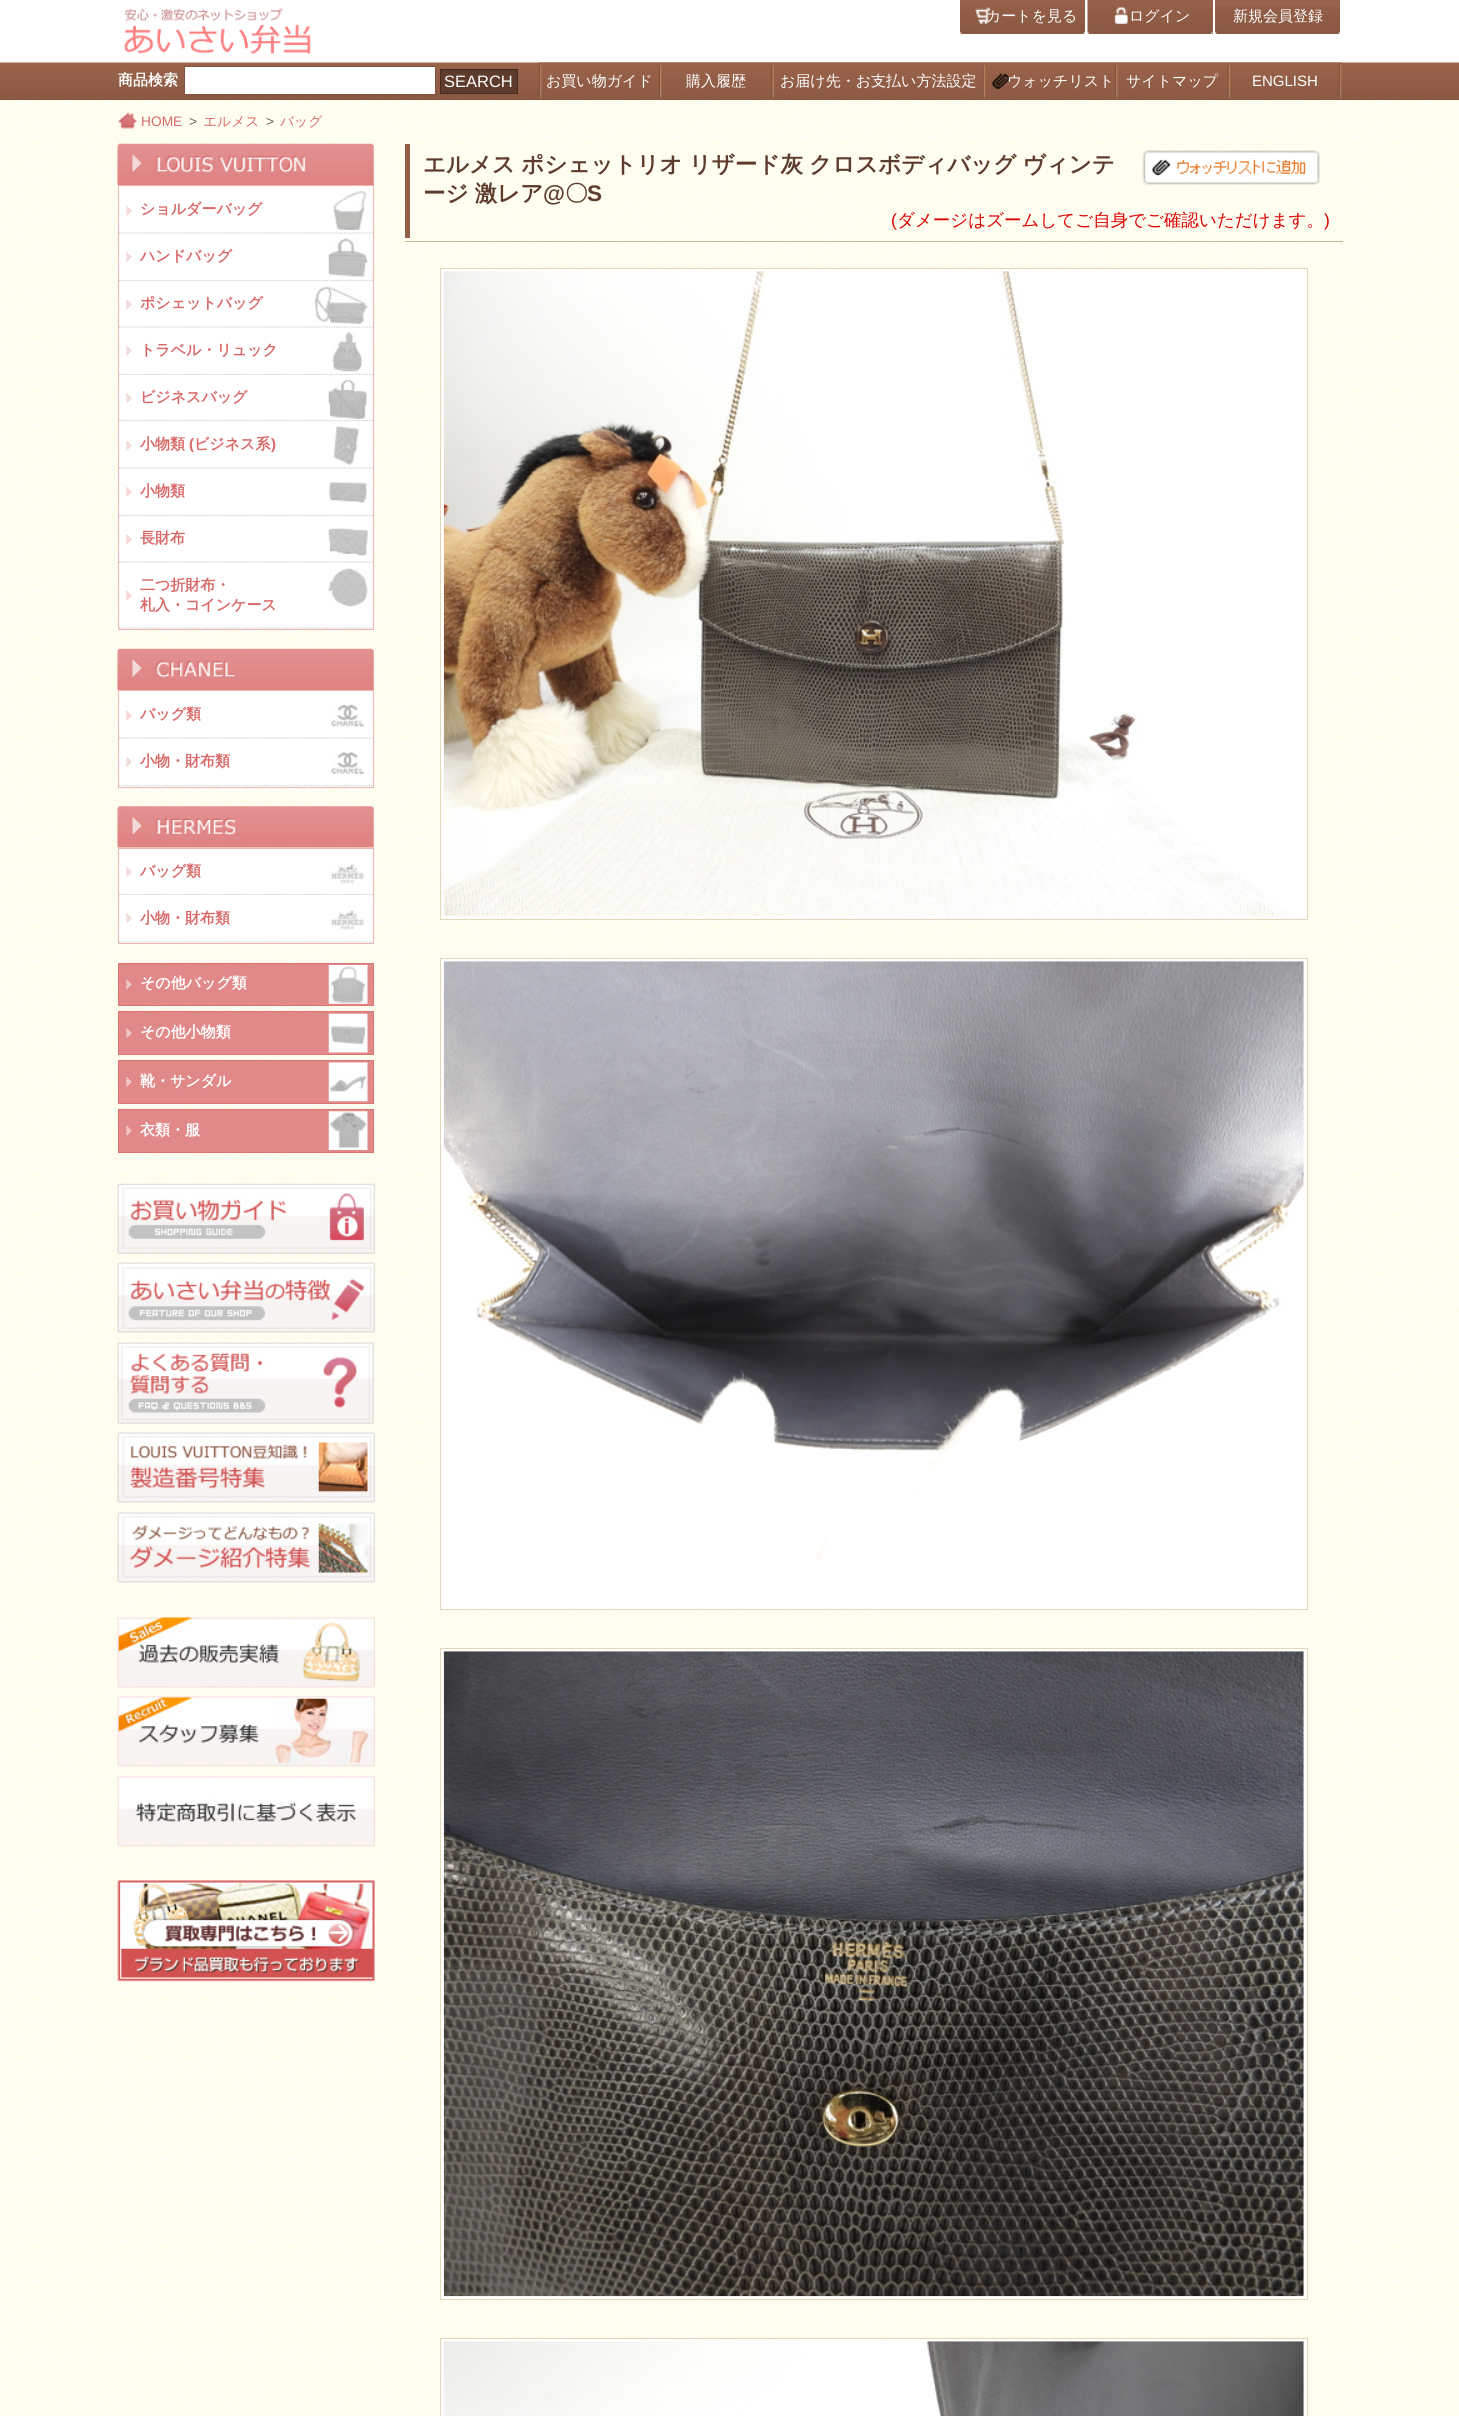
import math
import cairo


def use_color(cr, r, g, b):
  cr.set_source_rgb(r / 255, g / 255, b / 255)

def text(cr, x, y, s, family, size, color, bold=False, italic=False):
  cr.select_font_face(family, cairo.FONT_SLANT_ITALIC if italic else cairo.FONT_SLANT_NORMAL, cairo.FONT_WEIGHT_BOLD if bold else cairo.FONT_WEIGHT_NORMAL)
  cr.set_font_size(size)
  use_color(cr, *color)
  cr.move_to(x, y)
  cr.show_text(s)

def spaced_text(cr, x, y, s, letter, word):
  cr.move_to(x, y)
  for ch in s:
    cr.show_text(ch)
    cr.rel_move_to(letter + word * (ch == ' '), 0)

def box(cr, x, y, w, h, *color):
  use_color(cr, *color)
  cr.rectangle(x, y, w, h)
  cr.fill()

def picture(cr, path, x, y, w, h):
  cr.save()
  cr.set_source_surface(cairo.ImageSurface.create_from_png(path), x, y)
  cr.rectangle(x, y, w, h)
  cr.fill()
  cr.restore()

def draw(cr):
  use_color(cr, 139, 89, 67)
  cr.paint()
  box(cr, 0, 0, 1459, 63, 255, 255, 255)
  picture(cr, "img_01.png", 124, 8, 187, 46)
  box(cr, 960, 0, 125, 34, 153, 98, 74)
  picture(cr, "img_02.png", 960, 1, 125, 33)
  box(cr, 1088, 0, 125, 34, 153, 98, 74)
  picture(cr, "img_03.png", 1087, 0, 126, 34)
  box(cr, 1215, 0, 125, 34, 153, 98, 74)
  picture(cr, "img_04.png", 1215, 6, 125, 28)
  picture(cr, "img_05.png", 0, 62, 1459, 29)
  use_color(cr, 255, 255, 255)
  cr.rectangle(184.5, 66.5, 251, 28)
  cr.fill_preserve()
  use_color(cr, 130, 82, 62)
  cr.set_line_width(1)
  cr.stroke()
  use_color(cr, 94, 60, 45)
  cr.rectangle(440.5, 69.5, 77, 24)
  cr.fill_preserve()
  use_color(cr, 68, 43, 32)
  cr.stroke()
  picture(cr, "img_06.png", 538, 62, 122, 38)
  picture(cr, "img_07.png", 660, 62, 113, 38)
  picture(cr, "img_08.png", 772, 62, 212, 38)
  picture(cr, "img_09.png", 983, 62, 134, 38)
  picture(cr, "img_10.png", 1116, 62, 113, 38)
  picture(cr, "img_11.png", 1228, 62, 114, 38)
  picture(cr, "img_12.png", 0, 100, 1459, 2316)
  picture(cr, "img_13.png", 117, 112, 21, 17)
  box(cr, 405, 241, 938, 1, 191, 190, 155)
  box(cr, 405, 144, 5, 94, 147, 94, 71)
  picture(cr, "img_14.png", 1142, 150, 178, 35)
  use_color(cr, 255, 255, 255)
  cr.rectangle(440.5, 268.5, 867, 651)
  cr.fill_preserve()
  use_color(cr, 226, 214, 184)
  cr.stroke()
  picture(cr, "img_15.png", 443, 271, 849, 645)
  use_color(cr, 255, 255, 255)
  cr.rectangle(440.5, 958.5, 867, 651)
  cr.fill_preserve()
  use_color(cr, 226, 214, 184)
  cr.stroke()
  picture(cr, "img_16.png", 443, 961, 861, 599)
  use_color(cr, 255, 255, 255)
  cr.rectangle(440.5, 1648.5, 867, 651)
  cr.fill_preserve()
  use_color(cr, 226, 214, 184)
  cr.stroke()
  picture(cr, "img_17.png", 443, 1651, 861, 646)
  use_color(cr, 255, 255, 255)
  cr.rectangle(440.5, 2338.5, 867, 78)
  cr.fill_preserve()
  use_color(cr, 226, 214, 184)
  cr.stroke()
  picture(cr, "img_18.png", 444, 2341, 860, 75)
  picture(cr, "img_19.png", 117, 143, 257, 42)
  picture(cr, "img_20.png", 132, 154, 10, 18)
  use_color(cr, 255, 255, 255)
  cr.rectangle(118.5, 185.5, 255, 444)
  cr.fill_preserve()
  use_color(cr, 237, 182, 182)
  cr.stroke()
  cr.new_path()
  cr.move_to(119, 233)
  cr.line_to(372.5, 233)
  use_color(cr, 204, 204, 204)
  cr.set_line_width(1.2)
  cr.set_dash([1.25, 1.25])
  cr.stroke()
  picture(cr, "img_21.png", 126, 206, 6, 10)
  picture(cr, "img_22.png", 333, 191, 34, 39)
  cr.new_path()
  cr.move_to(119, 280.5)
  cr.line_to(372.5, 280.5)
  cr.stroke()
  picture(cr, "img_23.png", 126, 252, 6, 10)
  picture(cr, "img_24.png", 328, 238, 40, 40)
  cr.new_path()
  cr.move_to(119, 327)
  cr.line_to(372.5, 327)
  cr.stroke()
  picture(cr, "img_25.png", 126, 300, 6, 9)
  picture(cr, "img_26.png", 315, 286, 53, 38)
  cr.new_path()
  cr.move_to(119, 374.5)
  cr.line_to(372.5, 374.5)
  cr.stroke()
  picture(cr, "img_21.png", 126, 346, 6, 10)
  picture(cr, "img_27.png", 332, 332, 31, 40)
  cr.new_path()
  cr.move_to(119, 420.5)
  cr.line_to(372.5, 420.5)
  cr.stroke()
  picture(cr, "img_28.png", 126, 393, 6, 10)
  picture(cr, "img_29.png", 328, 380, 40, 39)
  cr.new_path()
  cr.move_to(119, 468)
  cr.line_to(372.5, 468)
  cr.stroke()
  picture(cr, "img_21.png", 126, 441, 6, 10)
  picture(cr, "img_30.png", 333, 426, 26, 39)
  cr.new_path()
  cr.move_to(119, 515.5)
  cr.line_to(372.5, 515.5)
  cr.stroke()
  picture(cr, "img_23.png", 126, 487, 6, 10)
  picture(cr, "img_31.png", 328, 482, 39, 21)
  cr.new_path()
  cr.move_to(119, 562)
  cr.line_to(372.5, 562)
  cr.stroke()
  picture(cr, "img_25.png", 126, 535, 6, 9)
  picture(cr, "img_32.png", 328, 528, 40, 28)
  cr.new_path()
  cr.move_to(119, 628)
  cr.line_to(372.5, 628)
  cr.stroke()
  picture(cr, "img_21.png", 126, 591, 6, 10)
  picture(cr, "img_33.png", 328, 568, 40, 39)
  picture(cr, "img_34.png", 117, 648, 257, 42)
  picture(cr, "img_20.png", 132, 659, 10, 18)
  use_color(cr, 255, 255, 255)
  cr.rectangle(118.5, 690.5, 255, 97)
  cr.fill_preserve()
  use_color(cr, 237, 182, 182)
  cr.set_line_width(1)
  cr.set_dash([])
  cr.stroke()
  cr.new_path()
  cr.move_to(119, 738)
  cr.line_to(372.5, 738)
  use_color(cr, 204, 204, 204)
  cr.set_line_width(1.2)
  cr.set_dash([1.25, 1.25])
  cr.stroke()
  picture(cr, "img_21.png", 126, 711, 6, 10)
  picture(cr, "img_35.png", 331, 704, 33, 23)
  cr.new_path()
  cr.move_to(119, 785.5)
  cr.line_to(372.5, 785.5)
  cr.stroke()
  picture(cr, "img_23.png", 126, 757, 6, 10)
  picture(cr, "img_36.png", 331, 752, 33, 22)
  picture(cr, "img_37.png", 117, 806, 257, 42)
  picture(cr, "img_38.png", 132, 817, 10, 17)
  use_color(cr, 255, 255, 255)
  cr.rectangle(118.5, 848.5, 255, 95)
  cr.fill_preserve()
  use_color(cr, 237, 182, 182)
  cr.set_line_width(1)
  cr.set_dash([])
  cr.stroke()
  cr.new_path()
  cr.move_to(119, 894.5)
  cr.line_to(372.5, 894.5)
  use_color(cr, 204, 204, 204)
  cr.set_line_width(1.2)
  cr.set_dash([1.25, 1.25])
  cr.stroke()
  picture(cr, "img_23.png", 126, 867, 6, 10)
  picture(cr, "img_39.png", 331, 864, 33, 20)
  cr.new_path()
  cr.move_to(119, 942)
  cr.line_to(372.5, 942)
  cr.stroke()
  picture(cr, "img_28.png", 126, 913, 6, 10)
  picture(cr, "img_40.png", 331, 910, 34, 20)
  use_color(cr, 225, 136, 136)
  cr.rectangle(118.5, 963.5, 255, 42)
  cr.fill_preserve()
  use_color(cr, 220, 116, 116)
  cr.set_line_width(1)
  cr.set_dash([])
  cr.stroke()
  picture(cr, "img_41.png", 126, 979, 6, 10)
  picture(cr, "img_42.png", 328, 965, 40, 39)
  use_color(cr, 225, 136, 136)
  cr.rectangle(118.5, 1011.5, 255, 43)
  cr.fill_preserve()
  use_color(cr, 220, 116, 116)
  cr.stroke()
  picture(cr, "img_43.png", 126, 1028, 6, 10)
  picture(cr, "img_44.png", 328, 1013, 40, 40)
  use_color(cr, 225, 136, 136)
  cr.rectangle(118.5, 1060.5, 255, 43)
  cr.fill_preserve()
  use_color(cr, 220, 116, 116)
  cr.stroke()
  picture(cr, "img_45.png", 126, 1077, 6, 10)
  picture(cr, "img_46.png", 328, 1062, 40, 40)
  use_color(cr, 225, 136, 136)
  cr.rectangle(118.5, 1109.5, 255, 43)
  cr.fill_preserve()
  use_color(cr, 220, 116, 116)
  cr.stroke()
  picture(cr, "img_47.png", 126, 1126, 6, 10)
  picture(cr, "img_48.png", 328, 1111, 40, 39)
  picture(cr, "img_49.png", 117, 1183, 258, 71)
  picture(cr, "img_50.png", 117, 1262, 258, 71)
  picture(cr, "img_51.png", 117, 1342, 257, 82)
  picture(cr, "img_52.png", 117, 1432, 258, 71)
  picture(cr, "img_53.png", 117, 1512, 258, 71)
  picture(cr, "img_54.png", 117, 1617, 258, 71)
  picture(cr, "img_55.png", 117, 1696, 258, 71)
  picture(cr, "img_56.png", 117, 1776, 258, 71)
  picture(cr, "img_57.png", 117, 1880, 258, 102)
  text(cr, 986, 21, "カートを見る", "WenQuanYi Zen Hei Medium", 15, (255, 255, 255))
  text(cr, 1129, 21, "ログイン", "WenQuanYi Zen Hei Medium", 15, (255, 255, 255))
  text(cr, 1233, 21, "新規会員登録", "WenQuanYi Zen Hei Medium", 15, (255, 255, 255))
  text(cr, 118, 85, "商品検索", "WenQuanYi Zen Hei", 15, (255, 255, 255), bold=True)
  text(cr, 444, 87, "SEARCH", "Liberation Sans", 16.5, (255, 255, 255))
  text(cr, 546, 86, "お買い物ガイド", "WenQuanYi Zen Hei Medium", 15, (255, 255, 255))
  text(cr, 686, 86, "購入履歴", "WenQuanYi Zen Hei Medium", 15, (255, 255, 255))
  text(cr, 780, 86, "お届け先・お支払い方法設定", "WenQuanYi Zen Hei Medium", 15, (255, 255, 255))
  text(cr, 1007, 86, "ウォッチリスト", "WenQuanYi Zen Hei Medium", 15, (255, 255, 255))
  text(cr, 1126, 86, "サイトマップ", "WenQuanYi Zen Hei Medium", 15, (255, 255, 255))
  text(cr, 1252, 86, "ENGLISH", "Liberation Sans", 15, (255, 255, 255))
  text(cr, 141, 126, "HOME", "Liberation Sans", 13.75, (217, 104, 104))
  text(cr, 189, 126, ">", "Liberation Sans", 13.75, (102, 102, 102))
  text(cr, 203, 126, "エルメス", "WenQuanYi Zen Hei Medium", 13.75, (217, 104, 104))
  text(cr, 266, 126, ">", "Liberation Sans", 13.75, (102, 102, 102))
  text(cr, 280, 126, "バッグ", "WenQuanYi Zen Hei Medium", 13.75, (217, 104, 104))
  cr.select_font_face("WenQuanYi Zen Hei", cairo.FONT_SLANT_NORMAL, cairo.FONT_WEIGHT_BOLD)
  cr.set_font_size(22.5)
  use_color(cr, 94, 60, 45)
  spaced_text(cr, 423, 172, "エルメス ポシェットリオ リザード灰 クロスボディバッグ ヴィンテ", 0, -0.5)
  spaced_text(cr, 423, 201, "ージ 激レア", 0, -0.5)
  text(cr, 543, 201, "@", "Liberation Sans", 22.5, (94, 60, 45), bold=True)
  text(cr, 565, 201, "〇", "WenQuanYi Zen Hei", 22.5, (94, 60, 45), bold=True)
  text(cr, 587, 201, "S", "Liberation Sans", 22.5, (94, 60, 45), bold=True)
  text(cr, 891, 226, "(", "Liberation Sans", 17.5, (221, 0, 0))
  text(cr, 897, 226, "ダメージはズームしてご自身でご確認いただけます。", "WenQuanYi Zen Hei Medium", 17.5, (221, 0, 0))
  text(cr, 1324, 226, ")", "Liberation Sans", 17.5, (221, 0, 0))
  text(cr, 140, 214, "ショルダーバッグ", "WenQuanYi Zen Hei", 15, (217, 104, 104), bold=True)
  text(cr, 140, 261, "ハンドバッグ", "WenQuanYi Zen Hei", 15, (217, 104, 104), bold=True)
  text(cr, 140, 308, "ポシェットバッグ", "WenQuanYi Zen Hei", 15, (217, 104, 104), bold=True)
  text(cr, 140, 355, "トラベル・リュック", "WenQuanYi Zen Hei", 15, (217, 104, 104), bold=True)
  text(cr, 140, 402, "ビジネスバッグ", "WenQuanYi Zen Hei", 15, (217, 104, 104), bold=True)
  text(cr, 140, 449, "小物類", "WenQuanYi Zen Hei", 15, (217, 104, 104), bold=True)
  text(cr, 189, 449, "(", "Liberation Sans", 15, (217, 104, 104), bold=True)
  text(cr, 194, 449, "ビジネス系", "WenQuanYi Zen Hei", 15, (217, 104, 104), bold=True)
  text(cr, 271, 449, ")", "Liberation Sans", 15, (217, 104, 104), bold=True)
  text(cr, 140, 496, "小物類", "WenQuanYi Zen Hei", 15, (217, 104, 104), bold=True)
  text(cr, 140, 543, "長財布", "WenQuanYi Zen Hei", 15, (217, 104, 104), bold=True)
  text(cr, 140, 590, "二つ折財布・", "WenQuanYi Zen Hei", 15, (217, 104, 104), bold=True)
  text(cr, 140, 610, "札入・コインケース", "WenQuanYi Zen Hei", 15, (217, 104, 104), bold=True)
  text(cr, 140, 719, "バッグ類", "WenQuanYi Zen Hei", 15, (217, 104, 104), bold=True)
  text(cr, 140, 766, "小物・財布類", "WenQuanYi Zen Hei", 15, (217, 104, 104), bold=True)
  text(cr, 140, 876, "バッグ類", "WenQuanYi Zen Hei", 15, (217, 104, 104), bold=True)
  text(cr, 140, 923, "小物・財布類", "WenQuanYi Zen Hei", 15, (217, 104, 104), bold=True)
  text(cr, 140, 988, "その他バッグ類", "WenQuanYi Zen Hei", 15, (255, 255, 255), bold=True)
  text(cr, 140, 1037, "その他小物類", "WenQuanYi Zen Hei", 15, (255, 255, 255), bold=True)
  text(cr, 140, 1086, "靴・サンダル", "WenQuanYi Zen Hei", 15, (255, 255, 255), bold=True)
  text(cr, 140, 1135, "衣類・服", "WenQuanYi Zen Hei", 15, (255, 255, 255), bold=True)


surface = cairo.ImageSurface(cairo.FORMAT_RGB24, 1459, 2416)
cr = cairo.Context(surface)
options = cairo.FontOptions()
options.set_hint_metrics(cairo.HINT_METRICS_OFF)
options.set_hint_style(cairo.HINT_STYLE_NONE)
cr.set_font_options(options)
cr.set_miter_limit(4)
draw(cr)
surface.write_to_png("out.png")
